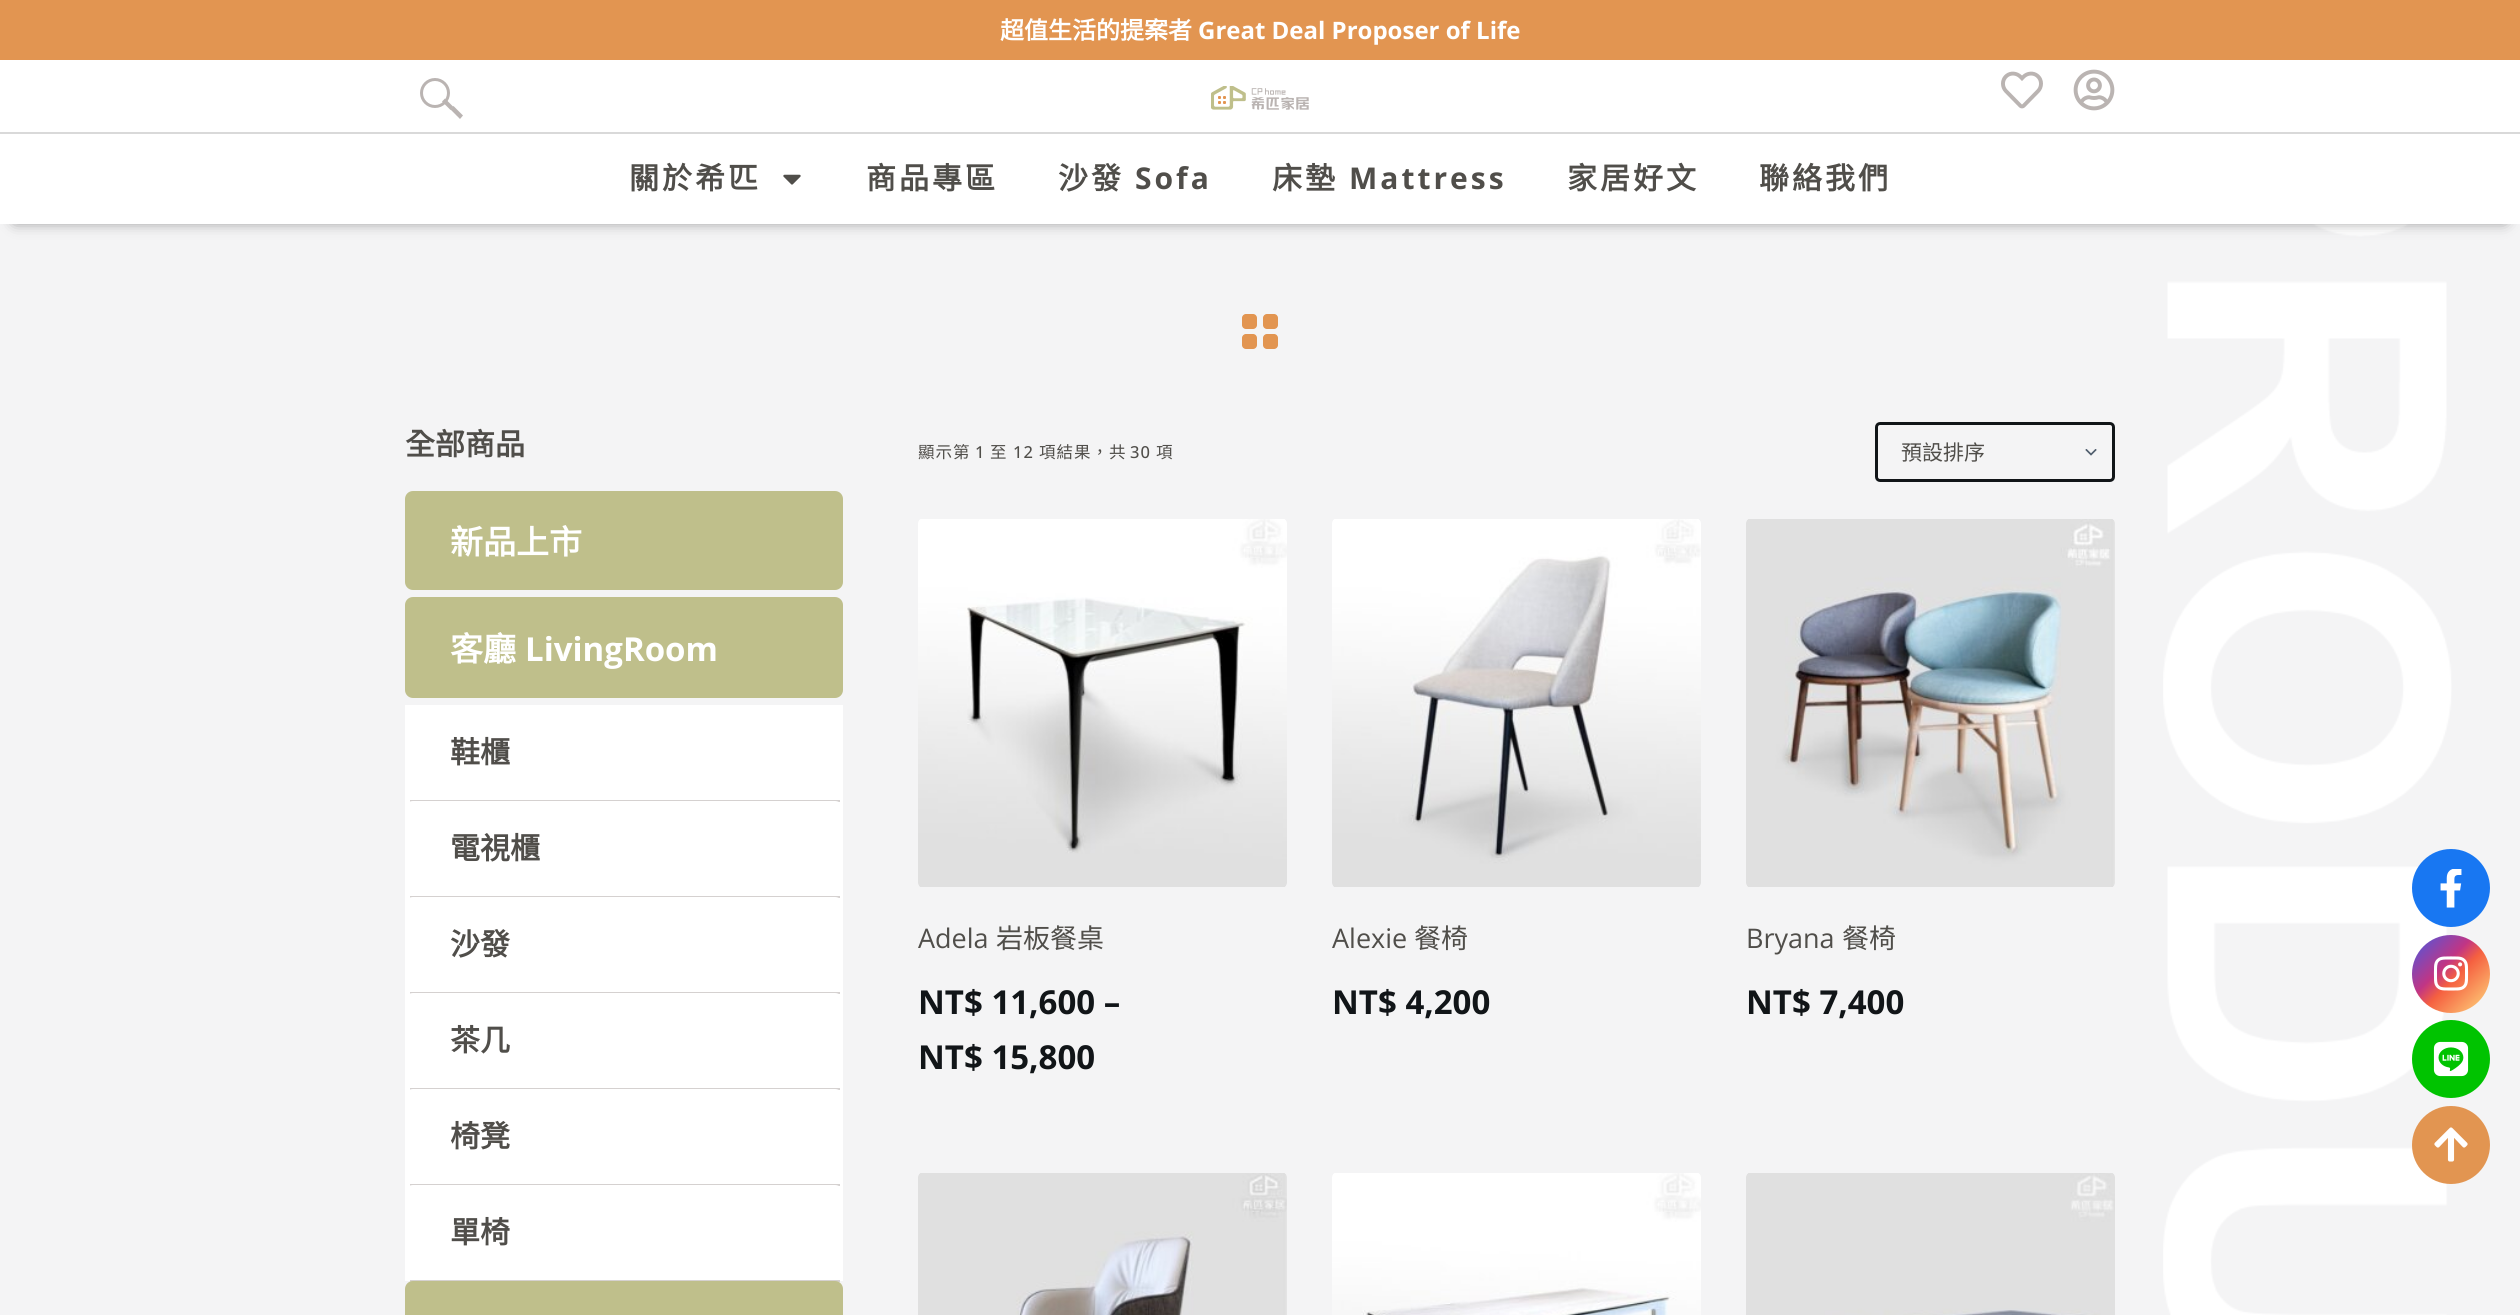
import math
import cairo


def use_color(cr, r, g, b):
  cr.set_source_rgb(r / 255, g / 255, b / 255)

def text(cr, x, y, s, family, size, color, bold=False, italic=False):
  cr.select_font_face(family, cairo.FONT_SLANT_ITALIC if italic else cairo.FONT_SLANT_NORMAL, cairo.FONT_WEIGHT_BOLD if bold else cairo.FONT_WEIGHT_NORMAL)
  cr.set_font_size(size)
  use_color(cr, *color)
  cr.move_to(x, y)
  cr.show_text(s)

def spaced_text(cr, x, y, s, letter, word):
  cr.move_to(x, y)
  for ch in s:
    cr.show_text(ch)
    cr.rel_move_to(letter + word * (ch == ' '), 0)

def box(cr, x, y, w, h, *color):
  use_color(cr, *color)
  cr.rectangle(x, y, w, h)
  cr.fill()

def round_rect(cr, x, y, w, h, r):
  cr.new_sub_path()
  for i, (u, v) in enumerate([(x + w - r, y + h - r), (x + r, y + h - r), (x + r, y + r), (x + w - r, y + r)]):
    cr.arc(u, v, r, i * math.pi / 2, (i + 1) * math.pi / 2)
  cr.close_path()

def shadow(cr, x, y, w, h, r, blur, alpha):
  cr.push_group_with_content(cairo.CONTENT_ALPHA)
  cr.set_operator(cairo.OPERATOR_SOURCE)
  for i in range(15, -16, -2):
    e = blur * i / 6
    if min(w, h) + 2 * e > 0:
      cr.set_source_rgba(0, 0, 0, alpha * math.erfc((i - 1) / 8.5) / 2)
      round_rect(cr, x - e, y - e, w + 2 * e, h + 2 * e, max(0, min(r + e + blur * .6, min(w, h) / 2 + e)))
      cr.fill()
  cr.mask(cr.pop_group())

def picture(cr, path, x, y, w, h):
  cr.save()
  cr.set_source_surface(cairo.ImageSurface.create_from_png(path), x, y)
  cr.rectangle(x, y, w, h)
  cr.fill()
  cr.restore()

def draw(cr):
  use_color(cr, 244, 244, 245)
  cr.paint()
  box(cr, 0, 60, 2520, 164, 255, 255, 255)
  box(cr, 0, 0, 2520, 60, 226, 149, 81)
  box(cr, 0, 132, 2520, 2, 217, 217, 217)
  cr.arc(435, 93, 13.5, 0, 2 * math.pi)
  use_color(cr, 186, 180, 178)
  cr.set_line_width(3)
  cr.stroke()
  cr.new_path()
  cr.move_to(442, 101.5)
  cr.line_to(445, 98.5)
  cr.line_to(453.5, 107)
  cr.line_to(450.5, 110)
  cr.close_path()
  cr.fill()
  cr.new_path()
  cr.move_to(450.5, 109.5)
  cr.line_to(453.5, 106)
  cr.line_to(463, 115.5)
  cr.line_to(460, 119)
  cr.close_path()
  cr.fill()
  picture(cr, "img_01.png", 1211, 86, 98, 24)
  picture(cr, "img_02.png", 2001, 71, 42, 38)
  picture(cr, "img_03.png", 2073, 69, 42, 42)
  picture(cr, "img_05.png", 2163, 224, 289, 1091)
  cr.save()
  cr.set_fill_rule(cairo.FILL_RULE_EVEN_ODD)
  cr.new_path()
  cr.move_to(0, 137)
  cr.line_to(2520, 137)
  cr.line_to(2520, 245)
  cr.line_to(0, 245)
  cr.close_path()
  cr.move_to(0, 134)
  cr.line_to(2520, 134)
  cr.line_to(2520, 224)
  cr.line_to(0, 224)
  cr.close_path()
  cr.clip()
  use_color(cr, 0, 0, 0)
  shadow(cr, 15, 161, 2490, 60, 0, 7.5, 0.5)
  cr.restore()
  picture(cr, "img_04.png", 783, 174, 18, 11)
  use_color(cr, 226, 149, 81)
  round_rect(cr, 1242, 314, 15, 15, 4)
  cr.fill()
  round_rect(cr, 1263, 314, 15, 15, 4)
  cr.fill()
  round_rect(cr, 1242, 334, 15, 15, 4)
  cr.fill()
  round_rect(cr, 1263, 334, 15, 15, 4)
  cr.fill()
  use_color(cr, 191, 191, 139)
  round_rect(cr, 405, 491, 438, 99, 8)
  cr.fill()
  round_rect(cr, 405, 597, 438, 101, 8)
  cr.fill()
  box(cr, 405, 705, 438, 576, 255, 255, 255)
  box(cr, 410, 800, 430, 2, 213, 209, 208)
  use_color(cr, 255, 255, 255)
  round_rect(cr, 405, 801, 438, 96, 8)
  cr.fill()
  box(cr, 410, 896, 430, 2, 213, 209, 208)
  use_color(cr, 255, 255, 255)
  round_rect(cr, 405, 897, 438, 96, 8)
  cr.fill()
  box(cr, 410, 992, 430, 2, 213, 209, 208)
  use_color(cr, 255, 255, 255)
  round_rect(cr, 405, 993, 438, 96, 8)
  cr.fill()
  box(cr, 410, 1088, 430, 2, 213, 209, 208)
  use_color(cr, 255, 255, 255)
  round_rect(cr, 405, 1089, 438, 96, 8)
  cr.fill()
  box(cr, 410, 1184, 430, 2, 213, 209, 208)
  use_color(cr, 255, 255, 255)
  round_rect(cr, 405, 1185, 438, 96, 8)
  cr.fill()
  box(cr, 410, 1280, 430, 2, 213, 209, 208)
  use_color(cr, 191, 191, 139)
  round_rect(cr, 405, 1281, 438, 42, 8)
  cr.fill()
  picture(cr, "img_06.png", 2085, 449, 12, 7)
  round_rect(cr, 1876.5, 423.5, 237, 57, 3.5)
  use_color(cr, 17, 21, 24)
  cr.stroke()
  picture(cr, "img_07.png", 918, 519, 369, 368)
  picture(cr, "img_08.png", 1332, 519, 369, 368)
  picture(cr, "img_09.png", 1746, 519, 369, 368)
  picture(cr, "img_10.png", 918, 1173, 369, 142)
  picture(cr, "img_11.png", 1332, 1173, 369, 142)
  picture(cr, "img_12.png", 1746, 1173, 369, 142)
  use_color(cr, 24, 119, 242)
  cr.arc(2451, 888, 39, 0, 2 * math.pi)
  cr.fill()
  picture(cr, "img_13.png", 2440, 869, 22, 39)
  gradient = cairo.LinearGradient(2412, 935, 2490, 1013)
  gradient.add_color_stop_rgba(0.01, 0.278, 0.349, 0.89, 1)
  gradient.add_color_stop_rgba(0.4, 0.757, 0.208, 0.518, 1)
  gradient.add_color_stop_rgba(0.55, 0.961, 0.376, 0.251, 1)
  gradient.add_color_stop_rgba(1, 1, 0.863, 0.502, 1)
  cr.set_source(gradient)
  cr.arc(2451, 974, 39, 0, 2 * math.pi)
  cr.fill()
  picture(cr, "img_14.png", 2433, 956, 36, 35)
  use_color(cr, 0, 195, 0)
  cr.arc(2451, 1059, 39, 0, 2 * math.pi)
  cr.fill()
  picture(cr, "img_15.png", 2433, 1041, 36, 36)
  use_color(cr, 226, 149, 81)
  cr.arc(2451, 1145, 39, 0, 2 * math.pi)
  cr.fill()
  picture(cr, "img_16.png", 2434, 1127, 34, 35)
  text(cr, 1000, 39, "超值生活的提案者", "Noto Sans CJK TC", 24, (255, 255, 255), bold=True)
  text(cr, 1198, 39, "Great Deal Proposer of Life", "Open Sans", 24, (255, 255, 255), bold=True)
  cr.select_font_face("Noto Sans CJK TC", cairo.FONT_SLANT_NORMAL, cairo.FONT_WEIGHT_BOLD)
  cr.set_font_size(30)
  use_color(cr, 80, 78, 74)
  spaced_text(cr, 629, 189, "關於希匹", 3, 0)
  spaced_text(cr, 866, 189, "商品專區", 3, 0)
  spaced_text(cr, 1058, 189, "沙發", 3, 0)
  cr.select_font_face("Open Sans", cairo.FONT_SLANT_NORMAL, cairo.FONT_WEIGHT_BOLD)
  spaced_text(cr, 1135, 189, "Sofa", 3, 0)
  cr.select_font_face("Noto Sans CJK TC", cairo.FONT_SLANT_NORMAL, cairo.FONT_WEIGHT_BOLD)
  spaced_text(cr, 1272, 189, "床墊", 3, 0)
  cr.select_font_face("Open Sans", cairo.FONT_SLANT_NORMAL, cairo.FONT_WEIGHT_BOLD)
  spaced_text(cr, 1349, 189, "Mattress", 3, 0)
  cr.select_font_face("Noto Sans CJK TC", cairo.FONT_SLANT_NORMAL, cairo.FONT_WEIGHT_BOLD)
  spaced_text(cr, 1567, 189, "家居好文", 3, 0)
  spaced_text(cr, 1759, 189, "聯絡我們", 3, 0)
  text(cr, 405, 455, "全部商品", "Noto Sans CJK TC", 30, (80, 78, 74), bold=True)
  text(cr, 450, 554, "新品上市", "Noto Sans CJK TC", 33, (255, 255, 255), bold=True)
  text(cr, 450, 661, "客廳", "Noto Sans CJK TC", 33, (255, 255, 255), bold=True)
  text(cr, 525, 661, "LivingRoom", "Open Sans", 33, (255, 255, 255), bold=True)
  text(cr, 450, 763, "鞋櫃", "Noto Sans CJK TC", 30, (80, 78, 74), bold=True)
  text(cr, 450, 859, "電視櫃", "Noto Sans CJK TC", 30, (80, 78, 74), bold=True)
  text(cr, 450, 955, "沙發", "Noto Sans CJK TC", 30, (80, 78, 74), bold=True)
  text(cr, 450, 1051, "茶几", "Noto Sans CJK TC", 30, (80, 78, 74), bold=True)
  text(cr, 450, 1147, "椅凳", "Noto Sans CJK TC", 30, (80, 78, 74), bold=True)
  text(cr, 450, 1243, "單椅", "Noto Sans CJK TC", 30, (80, 78, 74), bold=True)
  cr.select_font_face("Noto Sans CJK TC")
  cr.set_font_size(16.5)
  spaced_text(cr, 918, 458, "顯示第", 1, 0)
  cr.select_font_face("Open Sans Medium")
  spaced_text(cr, 975, 458, "1", 1, 0)
  cr.select_font_face("Noto Sans CJK TC")
  spaced_text(cr, 990, 458, "至", 1, 0)
  cr.select_font_face("Open Sans Medium")
  spaced_text(cr, 1013, 458, "12", 1, 0)
  cr.select_font_face("Noto Sans CJK TC")
  spaced_text(cr, 1039, 458, "項結果，共", 1, 0)
  cr.select_font_face("Open Sans Medium")
  spaced_text(cr, 1130, 458, "30", 1, 0)
  cr.select_font_face("Noto Sans CJK TC")
  spaced_text(cr, 1156, 458, "項", 1, 0)
  text(cr, 1901, 460, "預設排序", "Noto Sans CJK TC", 21, (80, 78, 74))
  text(cr, 918, 948, "Adela", "Open Sans", 27, (80, 78, 74))
  text(cr, 996, 948, "岩板餐桌", "Noto Sans CJK TC", 27, (80, 78, 74))
  text(cr, 918, 1014, "NT$ 11,600 –", "Open Sans", 33, (17, 21, 24), bold=True)
  text(cr, 918, 1069, "NT$ 15,800", "Open Sans", 33, (17, 21, 24), bold=True)
  text(cr, 1332, 948, "Alexie", "Open Sans", 27, (80, 78, 74))
  text(cr, 1414, 948, "餐椅", "Noto Sans CJK TC", 27, (80, 78, 74))
  text(cr, 1332, 1014, "NT$ 4,200", "Open Sans", 33, (17, 21, 24), bold=True)
  text(cr, 1746, 948, "Bryana", "Open Sans", 27, (80, 78, 74))
  text(cr, 1842, 948, "餐椅", "Noto Sans CJK TC", 27, (80, 78, 74))
  text(cr, 1746, 1014, "NT$ 7,400", "Open Sans", 33, (17, 21, 24), bold=True)


surface = cairo.ImageSurface(cairo.FORMAT_RGB24, 2520, 1315)
cr = cairo.Context(surface)
options = cairo.FontOptions()
options.set_hint_metrics(cairo.HINT_METRICS_OFF)
options.set_hint_style(cairo.HINT_STYLE_NONE)
cr.set_font_options(options)
cr.set_miter_limit(4)
draw(cr)
surface.write_to_png("out.png")
